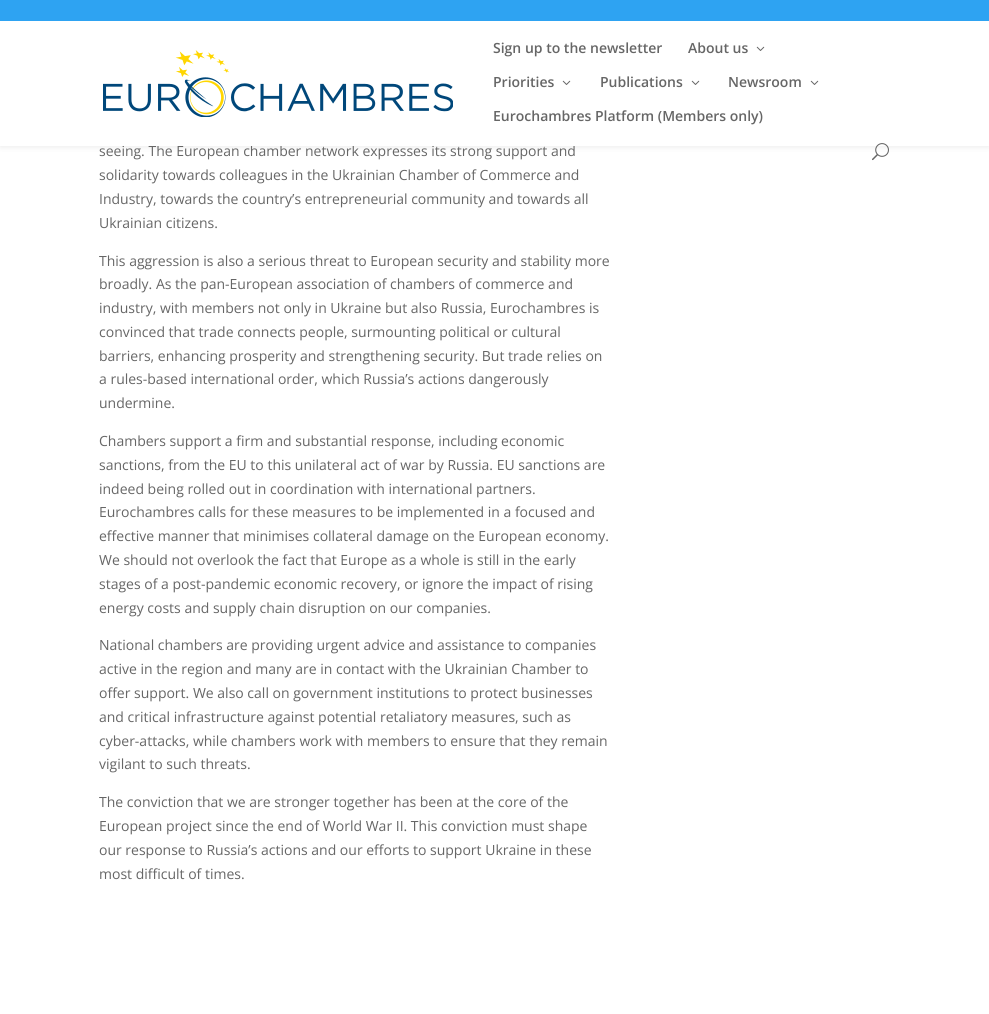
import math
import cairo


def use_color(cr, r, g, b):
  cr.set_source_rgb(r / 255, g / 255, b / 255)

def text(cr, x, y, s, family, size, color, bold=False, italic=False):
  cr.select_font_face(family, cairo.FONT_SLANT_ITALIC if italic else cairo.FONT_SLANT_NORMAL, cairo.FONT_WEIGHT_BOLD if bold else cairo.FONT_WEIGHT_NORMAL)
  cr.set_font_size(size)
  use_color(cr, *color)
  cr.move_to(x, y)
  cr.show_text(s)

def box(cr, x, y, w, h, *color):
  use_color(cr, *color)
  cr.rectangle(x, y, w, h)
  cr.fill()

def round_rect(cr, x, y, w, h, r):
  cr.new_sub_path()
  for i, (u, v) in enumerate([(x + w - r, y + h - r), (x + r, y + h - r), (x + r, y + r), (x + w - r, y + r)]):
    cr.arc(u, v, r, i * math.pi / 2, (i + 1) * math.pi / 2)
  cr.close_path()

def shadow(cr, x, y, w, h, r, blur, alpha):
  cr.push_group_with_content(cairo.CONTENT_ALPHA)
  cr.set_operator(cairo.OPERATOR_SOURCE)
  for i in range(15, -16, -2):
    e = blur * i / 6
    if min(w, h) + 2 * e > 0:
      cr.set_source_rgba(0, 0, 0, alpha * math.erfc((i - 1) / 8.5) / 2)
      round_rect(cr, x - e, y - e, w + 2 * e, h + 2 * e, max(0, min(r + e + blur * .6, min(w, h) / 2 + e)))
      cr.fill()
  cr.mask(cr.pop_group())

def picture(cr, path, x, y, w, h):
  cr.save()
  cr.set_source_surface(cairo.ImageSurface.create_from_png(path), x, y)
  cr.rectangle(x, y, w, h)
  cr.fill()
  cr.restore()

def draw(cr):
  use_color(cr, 255, 255, 255)
  cr.paint()
  use_color(cr, 0, 0, 0)
  shadow(cr, 0, 21, 989, 125, 0, 3.5, 0.1)
  box(cr, 0, 0, 989, 21, 46, 163, 242)
  text(cr, 99, 156, "seeing. The European chamber network expresses its strong support and", "Open Sans", 14, (102, 102, 102))
  box(cr, 0, 21, 989, 125, 255, 255, 255)
  picture(cr, "img_03.png", 872, 143, 17, 18)
  text(cr, 493, 121, "Eurochambres Platform (Members only)", "Open Sans SemiBold", 14, (102, 102, 102))
  picture(cr, "img_02.png", 810, 80, 9, 5)
  text(cr, 728, 87, "Newsroom", "Open Sans SemiBold", 14, (102, 102, 102))
  picture(cr, "img_02.png", 691, 80, 9, 5)
  text(cr, 600, 87, "Publications", "Open Sans SemiBold", 14, (102, 102, 102))
  picture(cr, "img_02.png", 562, 80, 9, 5)
  text(cr, 493, 87, "Priorities", "Open Sans SemiBold", 14, (102, 102, 102))
  picture(cr, "img_02.png", 756, 46, 9, 5)
  text(cr, 688, 53, "About us", "Open Sans SemiBold", 14, (102, 102, 102))
  text(cr, 493, 53, "Sign up to the newsletter", "Open Sans SemiBold", 14, (102, 102, 102))
  picture(cr, "img_01.png", 103, 50, 350, 67)
  text(cr, 99, 180, "solidarity towards colleagues in the Ukrainian Chamber of Commerce and", "Open Sans", 14, (102, 102, 102))
  text(cr, 99, 204, "Industry, towards the country’s entrepreneurial community and towards all", "Open Sans", 14, (102, 102, 102))
  text(cr, 99, 228, "Ukrainian citizens.", "Open Sans", 14, (102, 102, 102))
  text(cr, 99, 266, "This aggression is also a serious threat to European security and stability more", "Open Sans", 14, (102, 102, 102))
  text(cr, 99, 289, "broadly. As the pan-European association of chambers of commerce and", "Open Sans", 14, (102, 102, 102))
  text(cr, 99, 313, "industry, with members not only in Ukraine but also Russia, Eurochambres is", "Open Sans", 14, (102, 102, 102))
  text(cr, 99, 337, "convinced that trade connects people, surmounting political or cultural", "Open Sans", 14, (102, 102, 102))
  text(cr, 99, 361, "barriers, enhancing prosperity and strengthening security. But trade relies on", "Open Sans", 14, (102, 102, 102))
  text(cr, 99, 384, "a rules-based international order, which Russia’s actions dangerously", "Open Sans", 14, (102, 102, 102))
  text(cr, 99, 408, "undermine.", "Open Sans", 14, (102, 102, 102))
  text(cr, 99, 446, "Chambers support a firm and substantial response, including economic", "Open Sans", 14, (102, 102, 102))
  text(cr, 99, 470, "sanctions, from the EU to this unilateral act of war by Russia. EU sanctions are", "Open Sans", 14, (102, 102, 102))
  text(cr, 99, 494, "indeed being rolled out in coordination with international partners.", "Open Sans", 14, (102, 102, 102))
  text(cr, 99, 517, "Eurochambres calls for these measures to be implemented in a focused and", "Open Sans", 14, (102, 102, 102))
  text(cr, 99, 541, "effective manner that minimises collateral damage on the European economy.", "Open Sans", 14, (102, 102, 102))
  text(cr, 99, 565, "We should not overlook the fact that Europe as a whole is still in the early", "Open Sans", 14, (102, 102, 102))
  text(cr, 99, 589, "stages of a post-pandemic economic recovery, or ignore the impact of rising", "Open Sans", 14, (102, 102, 102))
  text(cr, 99, 613, "energy costs and supply chain disruption on our companies.", "Open Sans", 14, (102, 102, 102))
  text(cr, 99, 650, "National chambers are providing urgent advice and assistance to companies", "Open Sans", 14, (102, 102, 102))
  text(cr, 99, 674, "active in the region and many are in contact with the Ukrainian Chamber to", "Open Sans", 14, (102, 102, 102))
  text(cr, 99, 698, "offer support. We also call on government institutions to protect businesses", "Open Sans", 14, (102, 102, 102))
  text(cr, 99, 722, "and critical infrastructure against potential retaliatory measures, such as", "Open Sans", 14, (102, 102, 102))
  text(cr, 99, 746, "cyber-attacks, while chambers work with members to ensure that they remain", "Open Sans", 14, (102, 102, 102))
  text(cr, 99, 769, "vigilant to such threats.", "Open Sans", 14, (102, 102, 102))
  text(cr, 99, 807, "The conviction that we are stronger together has been at the core of the", "Open Sans", 14, (102, 102, 102))
  text(cr, 99, 831, "European project since the end of World War II. This conviction must shape", "Open Sans", 14, (102, 102, 102))
  text(cr, 99, 855, "our response to Russia’s actions and our efforts to support Ukraine in these", "Open Sans", 14, (102, 102, 102))
  text(cr, 99, 879, "most difficult of times.", "Open Sans", 14, (102, 102, 102))


surface = cairo.ImageSurface(cairo.FORMAT_RGB24, 989, 1014)
cr = cairo.Context(surface)
options = cairo.FontOptions()
options.set_hint_metrics(cairo.HINT_METRICS_OFF)
options.set_hint_style(cairo.HINT_STYLE_NONE)
cr.set_font_options(options)
cr.set_miter_limit(4)
draw(cr)
surface.write_to_png("out.png")
